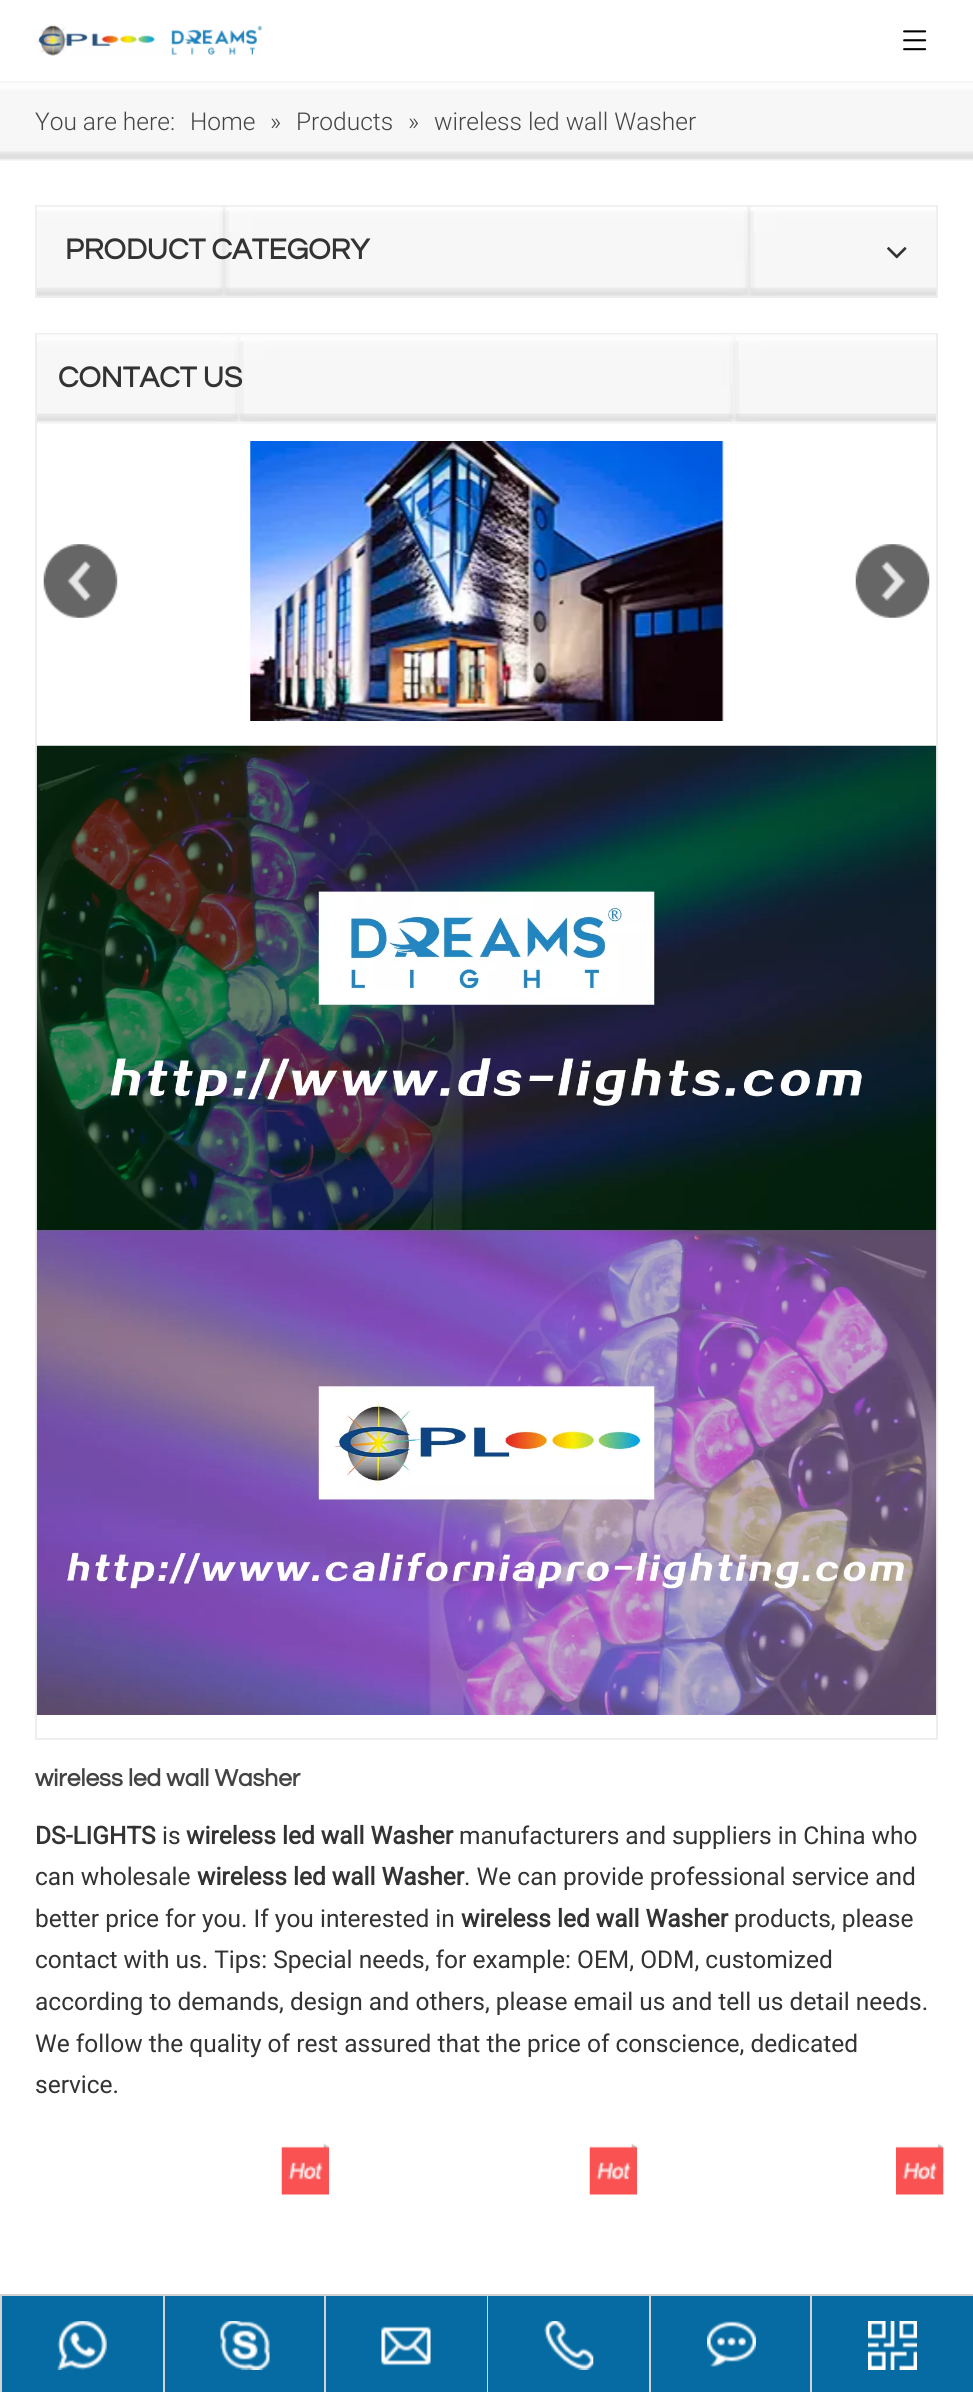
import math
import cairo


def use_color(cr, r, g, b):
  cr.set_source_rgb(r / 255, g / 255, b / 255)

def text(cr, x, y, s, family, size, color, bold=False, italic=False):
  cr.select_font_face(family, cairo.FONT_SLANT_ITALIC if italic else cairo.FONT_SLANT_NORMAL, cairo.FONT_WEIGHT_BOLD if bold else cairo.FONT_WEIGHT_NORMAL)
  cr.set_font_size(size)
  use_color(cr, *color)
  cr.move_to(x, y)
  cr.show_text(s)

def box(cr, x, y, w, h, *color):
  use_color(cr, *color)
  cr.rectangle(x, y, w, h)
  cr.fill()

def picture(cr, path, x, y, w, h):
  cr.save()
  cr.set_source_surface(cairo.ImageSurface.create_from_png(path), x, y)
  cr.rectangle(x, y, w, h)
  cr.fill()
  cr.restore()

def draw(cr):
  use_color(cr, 255, 255, 255)
  cr.paint()
  picture(cr, "img_01.png", 36, 24, 226, 33)
  picture(cr, "img_02.png", 903, 30, 24, 21)
  box(cr, 0, 81, 973, 80, 246, 247, 247)
  picture(cr, "img_03.png", 0, 83, 973, 77)
  cr.rectangle(36, 206, 901, 91)
  use_color(cr, 238, 238, 238)
  cr.stroke()
  box(cr, 37, 207, 899, 89, 238, 238, 238)
  picture(cr, "img_04.png", 36, 206, 901, 90)
  picture(cr, "img_05.png", 887, 247, 20, 12)
  box(cr, 35, 333, 903, 1, 238, 238, 238)
  box(cr, 936, 333, 2, 388, 238, 238, 238)
  box(cr, 35, 333, 2, 388, 238, 238, 238)
  box(cr, 37, 334, 899, 90, 246, 247, 247)
  picture(cr, "img_06.png", 37, 335, 899, 87)
  picture(cr, "img_07.png", 43, 544, 75, 74)
  picture(cr, "img_08.png", 250, 441, 474, 280)
  picture(cr, "img_09.png", 855, 544, 75, 74)
  box(cr, 936, 721, 2, 1019, 238, 238, 238)
  box(cr, 35, 1738, 903, 2, 238, 238, 238)
  box(cr, 35, 721, 2, 1019, 238, 238, 238)
  picture(cr, "img_10.png", 36, 745, 901, 970)
  picture(cr, "img_11.png", 281, 2143, 48, 52)
  picture(cr, "img_11.png", 589, 2143, 48, 52)
  picture(cr, "img_12.png", 896, 2143, 48, 52)
  box(cr, 0, 2294, 973, 2, 211, 211, 211)
  box(cr, 0, 2296, 2, 96, 211, 211, 211)
  box(cr, 2, 2296, 161, 96, 5, 107, 162)
  picture(cr, "img_13.png", 57, 2321, 50, 49)
  box(cr, 163, 2296, 2, 96, 211, 211, 211)
  box(cr, 165, 2296, 159, 96, 5, 107, 162)
  picture(cr, "img_14.png", 220, 2321, 50, 49)
  box(cr, 324, 2296, 2, 96, 211, 211, 211)
  box(cr, 326, 2296, 161, 96, 5, 107, 162)
  picture(cr, "img_15.png", 381, 2326, 50, 40)
  box(cr, 487, 2296, 1, 96, 211, 211, 211)
  box(cr, 488, 2296, 161, 96, 5, 107, 162)
  picture(cr, "img_16.png", 544, 2321, 50, 49)
  box(cr, 649, 2296, 2, 96, 211, 211, 211)
  box(cr, 651, 2296, 159, 96, 5, 107, 162)
  picture(cr, "img_17.png", 707, 2321, 49, 46)
  box(cr, 810, 2296, 2, 96, 211, 211, 211)
  box(cr, 812, 2296, 161, 96, 5, 107, 162)
  picture(cr, "img_18.png", 868, 2321, 49, 49)
  text(cr, 35, 130, "You are here:", "Roboto Light", 24.5, (68, 68, 68))
  text(cr, 190, 130, "Home", "Roboto Light", 24.5, (68, 68, 68))
  text(cr, 270, 130, "»", "Roboto Light", 24.5, (68, 68, 68))
  text(cr, 296, 130, "Products", "Roboto Light", 24.5, (68, 68, 68))
  text(cr, 408, 130, "»", "Roboto Light", 24.5, (68, 68, 68))
  text(cr, 434, 130, "wireless led wall Washer", "Roboto Light", 24.5, (68, 68, 68))
  text(cr, 65, 259, "PRODUCT CATEGORY", "Questrial", 29.75, (51, 51, 51), bold=True)
  text(cr, 58, 387, "CONTACT US", "Questrial", 29.75, (51, 51, 51), bold=True)
  text(cr, 35, 1786, "wireless led wall Washer", "Questrial", 24.5, (68, 68, 68), bold=True)
  text(cr, 35, 1844, "DS-LIGHTS", "Roboto", 24.5, (51, 51, 51), bold=True)
  text(cr, 162, 1844, "is", "Roboto", 24.5, (51, 51, 51))
  text(cr, 186, 1844, "wireless led wall Washer", "Roboto", 24.5, (51, 51, 51), bold=True)
  text(cr, 459, 1844, "manufacturers and suppliers in China who", "Roboto", 24.5, (51, 51, 51))
  text(cr, 35, 1885, "can wholesale", "Roboto", 24.5, (51, 51, 51))
  text(cr, 197, 1885, "wireless led wall Washer", "Roboto", 24.5, (51, 51, 51), bold=True)
  text(cr, 464, 1885, ". We can provide professional service and", "Roboto", 24.5, (51, 51, 51))
  text(cr, 35, 1927, "better price for you. If you interested in", "Roboto", 24.5, (51, 51, 51))
  text(cr, 461, 1927, "wireless led wall Washer", "Roboto", 24.5, (51, 51, 51), bold=True)
  text(cr, 734, 1927, "products, please", "Roboto", 24.5, (51, 51, 51))
  text(cr, 35, 1968, "contact with us. Tips: Special needs, for example: OEM, ODM, customized", "Roboto", 24.5, (51, 51, 51))
  text(cr, 35, 2010, "according to demands, design and others, please email us and tell us detail needs.", "Roboto", 24.5, (51, 51, 51))
  text(cr, 35, 2052, "We follow the quality of rest assured that the price of conscience, dedicated", "Roboto", 24.5, (51, 51, 51))
  text(cr, 35, 2093, "service.", "Roboto", 24.5, (51, 51, 51))


surface = cairo.ImageSurface(cairo.FORMAT_RGB24, 973, 2392)
cr = cairo.Context(surface)
options = cairo.FontOptions()
options.set_hint_metrics(cairo.HINT_METRICS_OFF)
options.set_hint_style(cairo.HINT_STYLE_NONE)
cr.set_font_options(options)
cr.set_miter_limit(4)
draw(cr)
surface.write_to_png("out.png")
